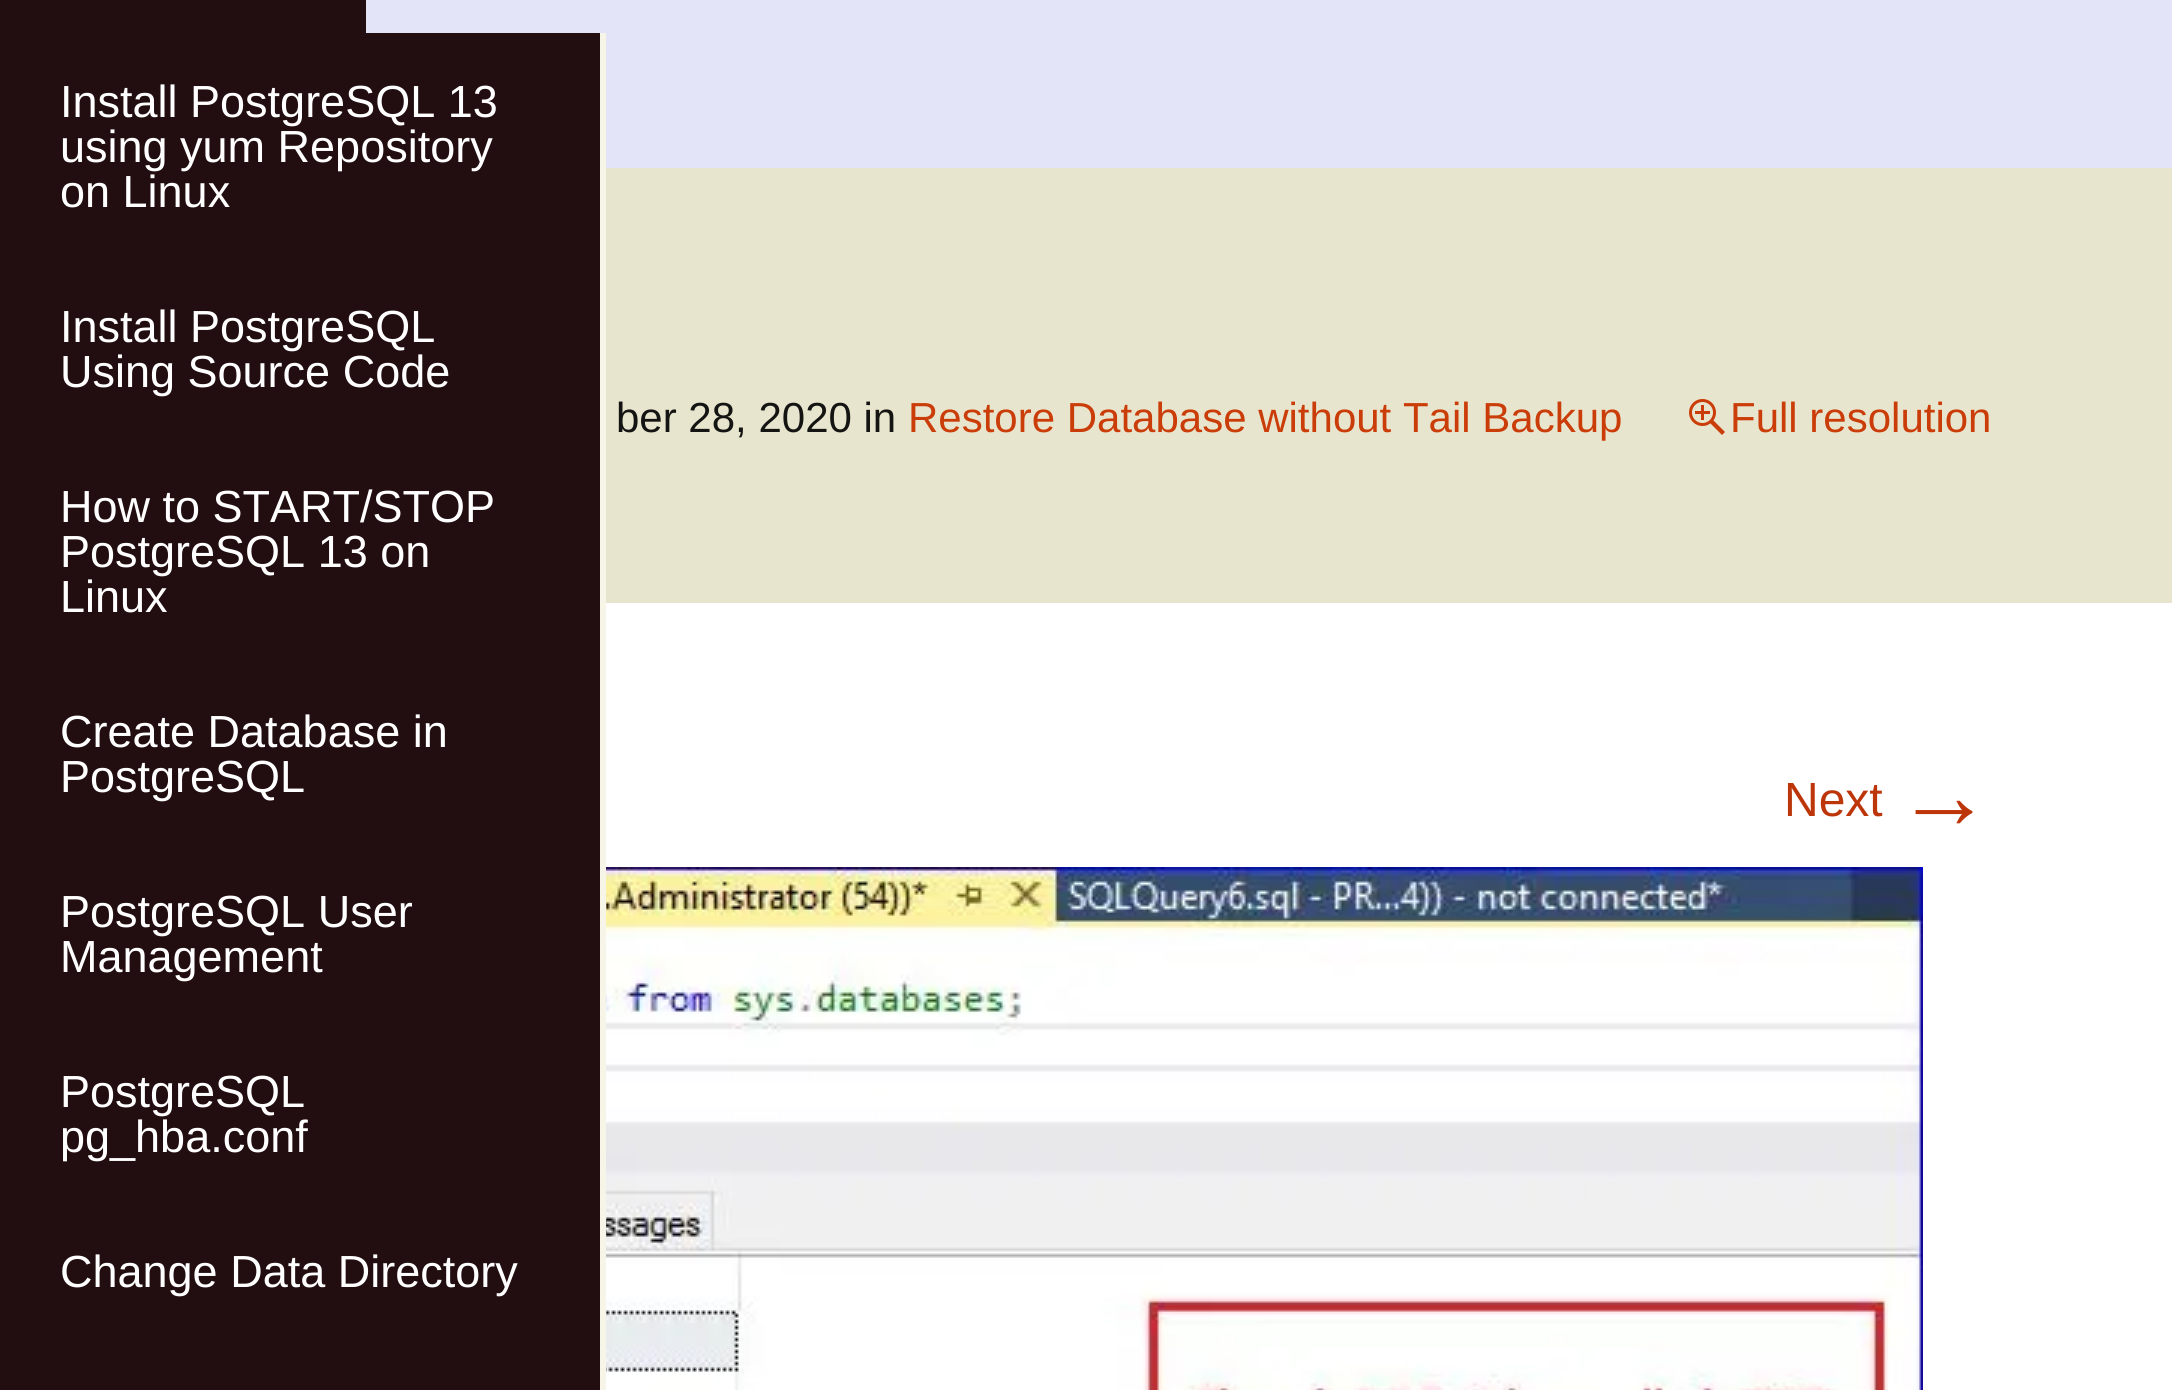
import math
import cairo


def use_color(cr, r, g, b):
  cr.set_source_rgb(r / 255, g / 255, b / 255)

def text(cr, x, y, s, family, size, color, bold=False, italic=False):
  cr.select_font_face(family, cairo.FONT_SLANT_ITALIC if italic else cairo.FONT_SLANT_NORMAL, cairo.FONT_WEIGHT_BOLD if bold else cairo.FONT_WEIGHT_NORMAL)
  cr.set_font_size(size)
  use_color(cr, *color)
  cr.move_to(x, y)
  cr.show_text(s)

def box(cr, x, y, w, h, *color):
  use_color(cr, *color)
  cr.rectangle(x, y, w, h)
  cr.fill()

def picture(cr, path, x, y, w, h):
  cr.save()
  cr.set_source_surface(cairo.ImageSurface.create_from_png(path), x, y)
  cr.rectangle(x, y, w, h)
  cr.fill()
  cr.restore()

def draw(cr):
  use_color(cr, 228, 228, 249)
  cr.paint()
  box(cr, 0, 0, 366, 33, 34, 14, 16)
  box(cr, 0, 33, 600, 1357, 34, 14, 16)
  box(cr, 600, 33, 6, 1357, 247, 245, 231)
  box(cr, 606, 168, 1566, 435, 232, 229, 206)
  picture(cr, "img_01.png", 1689, 399, 36, 36)
  box(cr, 606, 603, 1566, 787, 255, 255, 255)
  picture(cr, "img_02.png", 606, 867, 1317, 523)
  text(cr, 60, 117, "Install PostgreSQL 13", "Liberation Sans", 45, (255, 255, 255))
  text(cr, 60, 162, "using yum Repository", "Liberation Sans", 45, (255, 255, 255))
  text(cr, 60, 207, "on Linux", "Liberation Sans", 45, (255, 255, 255))
  text(cr, 60, 342, "Install PostgreSQL", "Liberation Sans", 45, (255, 255, 255))
  text(cr, 60, 387, "Using Source Code", "Liberation Sans", 45, (255, 255, 255))
  text(cr, 60, 522, "How to START/STOP", "Liberation Sans", 45, (255, 255, 255))
  text(cr, 60, 567, "PostgreSQL 13 on", "Liberation Sans", 45, (255, 255, 255))
  text(cr, 60, 612, "Linux", "Liberation Sans", 45, (255, 255, 255))
  text(cr, 60, 747, "Create Database in", "Liberation Sans", 45, (255, 255, 255))
  text(cr, 60, 792, "PostgreSQL", "Liberation Sans", 45, (255, 255, 255))
  text(cr, 60, 927, "PostgreSQL User", "Liberation Sans", 45, (255, 255, 255))
  text(cr, 60, 972, "Management", "Liberation Sans", 45, (255, 255, 255))
  text(cr, 60, 1107, "PostgreSQL", "Liberation Sans", 45, (255, 255, 255))
  text(cr, 60, 1152, "pg_hba.conf", "Liberation Sans", 45, (255, 255, 255))
  text(cr, 60, 1287, "Change Data Directory", "Liberation Sans", 45, (255, 255, 255))
  text(cr, 616, 432, "ber 28, 2020 in", "Liberation Sans", 42, (20, 20, 18))
  text(cr, 908, 432, "Restore Database without Tail Backup", "Liberation Sans", 42, (202, 60, 8))
  text(cr, 1730, 432, "Full resolution", "Liberation Sans", 42, (202, 60, 8))
  text(cr, 1784, 816, "Next", "Liberation Sans", 48, (188, 54, 10))
  text(cr, 1896, 828, "→", "Liberation Sans", 96, (188, 54, 10))


surface = cairo.ImageSurface(cairo.FORMAT_RGB24, 2172, 1390)
cr = cairo.Context(surface)
options = cairo.FontOptions()
options.set_hint_metrics(cairo.HINT_METRICS_OFF)
options.set_hint_style(cairo.HINT_STYLE_NONE)
cr.set_font_options(options)
cr.set_miter_limit(4)
draw(cr)
surface.write_to_png("out.png")
